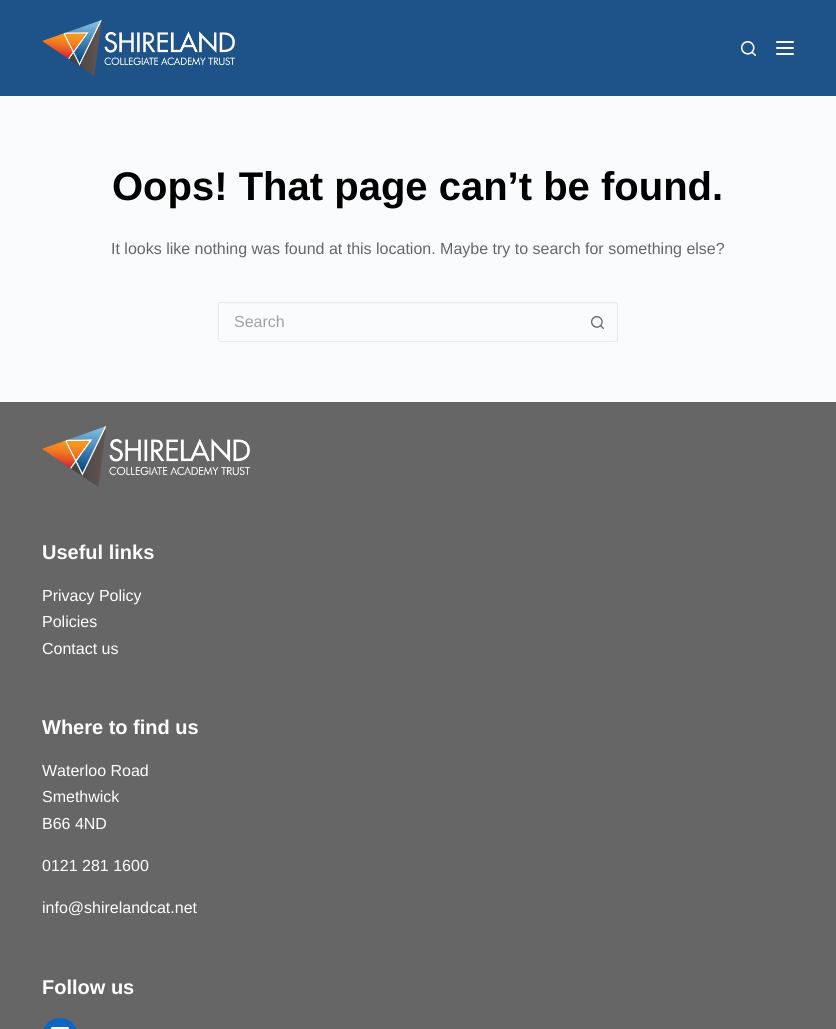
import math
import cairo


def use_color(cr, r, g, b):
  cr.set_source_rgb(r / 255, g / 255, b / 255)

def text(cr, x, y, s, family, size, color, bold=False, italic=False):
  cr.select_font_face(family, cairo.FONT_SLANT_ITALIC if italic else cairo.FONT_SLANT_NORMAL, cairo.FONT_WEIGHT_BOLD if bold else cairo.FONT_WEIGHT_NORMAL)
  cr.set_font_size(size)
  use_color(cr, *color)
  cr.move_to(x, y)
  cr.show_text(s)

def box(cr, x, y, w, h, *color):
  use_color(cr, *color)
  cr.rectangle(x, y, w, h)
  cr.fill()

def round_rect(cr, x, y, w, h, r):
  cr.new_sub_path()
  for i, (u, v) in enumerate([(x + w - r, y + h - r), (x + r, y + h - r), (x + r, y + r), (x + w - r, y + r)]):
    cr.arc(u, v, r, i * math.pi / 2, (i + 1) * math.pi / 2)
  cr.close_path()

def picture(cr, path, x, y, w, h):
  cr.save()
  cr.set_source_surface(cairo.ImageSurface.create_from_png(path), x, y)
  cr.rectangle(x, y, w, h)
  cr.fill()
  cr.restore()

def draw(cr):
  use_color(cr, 250, 251, 252)
  cr.paint()
  box(cr, 0, 0, 836, 96, 30, 83, 137)
  picture(cr, "img_01.png", 42, 20, 193, 56)
  picture(cr, "img_02.png", 741, 41, 15, 15)
  use_color(cr, 255, 255, 255)
  round_rect(cr, 776, 41, 18, 2, 1)
  cr.fill()
  round_rect(cr, 776, 47, 18, 2, 1)
  cr.fill()
  round_rect(cr, 776, 53, 18, 2, 1)
  cr.fill()
  use_color(cr, 228, 233, 238)
  cr.set_fill_rule(cairo.FILL_RULE_EVEN_ODD)
  cr.new_path()
  cr.move_to(221, 302)
  cr.line_to(578, 302)
  cr.line_to(578, 342)
  cr.line_to(221, 342)
  cr.curve_to(219, 342, 218, 341, 218, 339)
  cr.line_to(218, 305)
  cr.curve_to(218, 303, 219, 302, 221, 302)
  cr.close_path()
  cr.move_to(221, 303)
  cr.line_to(578, 303)
  cr.line_to(578, 341)
  cr.line_to(220, 341)
  cr.curve_to(218, 339, 219, 334, 219, 333)
  cr.line_to(219, 305)
  cr.line_to(220, 303)
  cr.close_path()
  cr.fill()
  cr.new_path()
  cr.move_to(578, 302)
  cr.line_to(615, 302)
  cr.curve_to(617, 302, 618, 303, 618, 305)
  cr.line_to(618, 339)
  cr.curve_to(618, 341, 617, 342, 615, 342)
  cr.line_to(578, 342)
  cr.close_path()
  cr.move_to(578, 303)
  cr.line_to(615, 303)
  cr.curve_to(616, 303, 617, 304, 617, 305)
  cr.line_to(617, 339)
  cr.curve_to(617, 340, 616, 341, 615, 341)
  cr.line_to(578, 341)
  cr.close_path()
  cr.fill()
  picture(cr, "img_03.png", 591, 316, 13, 13)
  box(cr, 0, 402, 836, 627, 102, 102, 102)
  picture(cr, "img_04.png", 42, 426, 208, 61)
  use_color(cr, 13, 102, 194)
  round_rect(cr, 42, 1018, 36, 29, 18)
  cr.fill()
  picture(cr, "img_05.png", 51, 1027, 18, 2)
  text(cr, 112, 200, "Oops! That page can’t be found.", "Liberation Sans", 40, (0, 0, 0), bold=True)
  text(cr, 111, 254, "It looks like nothing was found at this location. Maybe try to search for something else?", "Liberation Sans", 16, (102, 102, 102))
  text(cr, 234, 327, "Search", "Liberation Sans", 16, (161, 162, 162))
  text(cr, 42, 559, "Useful links", "Liberation Sans", 20, (255, 255, 255), bold=True)
  text(cr, 42, 601, "Privacy Policy", "Liberation Sans", 16, (255, 255, 255))
  text(cr, 42, 627, "Policies", "Liberation Sans", 16, (255, 255, 255))
  text(cr, 42, 654, "Contact us", "Liberation Sans", 16, (255, 255, 255))
  text(cr, 42, 734, "Where to find us", "Liberation Sans", 20, (255, 255, 255), bold=True)
  text(cr, 42, 776, "Waterloo Road", "Liberation Sans", 16, (255, 255, 255))
  text(cr, 42, 802, "Smethwick", "Liberation Sans", 16, (255, 255, 255))
  text(cr, 42, 829, "B66 4ND", "Liberation Sans", 16, (255, 255, 255))
  text(cr, 42, 871, "0121 281 1600", "Liberation Sans", 16, (255, 255, 255))
  text(cr, 42, 913, "info@shirelandcat.net", "Liberation Sans", 16, (255, 255, 255))
  text(cr, 42, 994, "Follow us", "Liberation Sans", 20, (255, 255, 255), bold=True)


surface = cairo.ImageSurface(cairo.FORMAT_RGB24, 836, 1029)
cr = cairo.Context(surface)
options = cairo.FontOptions()
options.set_hint_metrics(cairo.HINT_METRICS_OFF)
options.set_hint_style(cairo.HINT_STYLE_NONE)
cr.set_font_options(options)
cr.set_miter_limit(4)
draw(cr)
surface.write_to_png("out.png")
